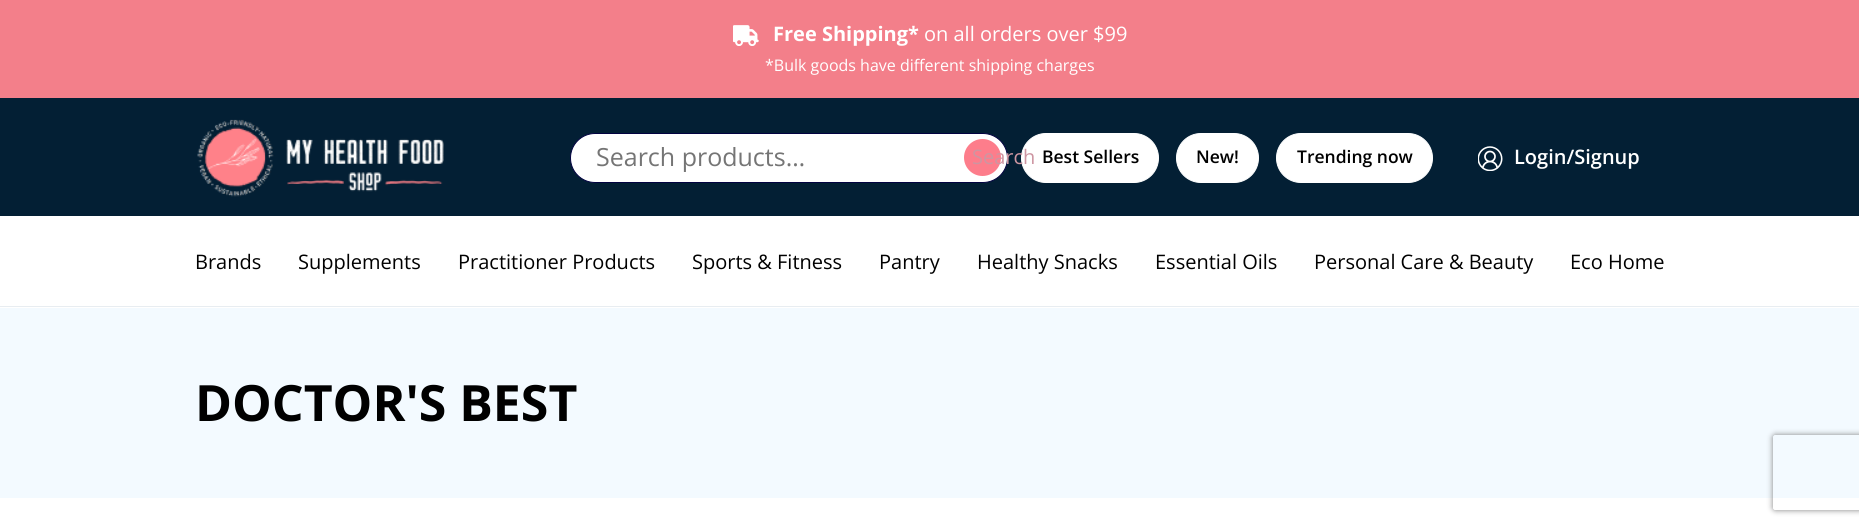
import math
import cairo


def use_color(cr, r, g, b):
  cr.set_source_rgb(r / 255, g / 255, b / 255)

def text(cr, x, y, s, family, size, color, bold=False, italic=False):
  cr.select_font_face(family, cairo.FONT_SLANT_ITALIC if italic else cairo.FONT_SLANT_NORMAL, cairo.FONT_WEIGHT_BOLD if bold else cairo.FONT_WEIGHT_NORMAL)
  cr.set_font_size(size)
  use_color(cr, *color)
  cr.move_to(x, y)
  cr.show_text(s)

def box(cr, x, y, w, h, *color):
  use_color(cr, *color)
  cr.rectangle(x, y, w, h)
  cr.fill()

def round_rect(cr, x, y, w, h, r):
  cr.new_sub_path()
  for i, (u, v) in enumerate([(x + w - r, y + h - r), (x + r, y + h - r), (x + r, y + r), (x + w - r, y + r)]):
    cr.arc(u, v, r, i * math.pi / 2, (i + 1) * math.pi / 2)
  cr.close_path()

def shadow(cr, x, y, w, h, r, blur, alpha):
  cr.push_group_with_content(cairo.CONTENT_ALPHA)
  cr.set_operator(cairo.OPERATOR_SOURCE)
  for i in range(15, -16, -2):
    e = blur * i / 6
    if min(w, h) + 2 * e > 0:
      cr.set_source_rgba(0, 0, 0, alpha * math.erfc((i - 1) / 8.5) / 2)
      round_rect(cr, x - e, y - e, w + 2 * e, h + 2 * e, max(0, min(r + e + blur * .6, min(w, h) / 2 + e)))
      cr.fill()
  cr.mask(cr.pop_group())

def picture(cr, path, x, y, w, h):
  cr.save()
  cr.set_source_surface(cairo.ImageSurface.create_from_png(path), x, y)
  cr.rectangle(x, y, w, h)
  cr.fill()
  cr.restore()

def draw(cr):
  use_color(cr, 255, 255, 255)
  cr.paint()
  box(cr, 0, 0, 1859, 98, 243, 127, 138)
  picture(cr, "img_01.png", 733, 25, 26, 21)
  box(cr, 0, 306, 1859, 1, 232, 237, 241)
  box(cr, 0, 98, 1859, 118, 3, 31, 52)
  picture(cr, "img_02.png", 197, 119, 247, 78)
  use_color(cr, 255, 255, 255)
  round_rect(cr, 570.5, 133.5, 437, 49, 24.5)
  cr.fill_preserve()
  use_color(cr, 2, 2, 64)
  cr.set_line_width(1)
  cr.stroke()
  use_color(cr, 253, 125, 139)
  cr.arc(982.5, 157.5, 18.5, 0, 2 * math.pi)
  cr.fill()
  use_color(cr, 255, 255, 255)
  round_rect(cr, 1021.5, 133.5, 137, 49, 24.5)
  cr.fill_preserve()
  cr.stroke()
  round_rect(cr, 1176.5, 133.5, 82, 49, 24.5)
  cr.fill_preserve()
  cr.stroke()
  round_rect(cr, 1276.5, 133.5, 156, 49, 24.5)
  cr.fill_preserve()
  cr.stroke()
  picture(cr, "img_03.png", 1478, 146, 25, 25)
  box(cr, 0, 308, 1859, 190, 243, 250, 255)
  cr.save()
  cr.set_fill_rule(cairo.FILL_RULE_EVEN_ODD)
  cr.new_path()
  cr.move_to(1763, 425)
  cr.line_to(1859, 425)
  cr.line_to(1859, 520)
  cr.line_to(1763, 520)
  cr.close_path()
  cr.move_to(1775.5, 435)
  cr.line_to(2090.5, 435)
  cr.curve_to(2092, 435, 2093, 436, 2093, 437.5)
  cr.line_to(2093, 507.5)
  cr.curve_to(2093, 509, 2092, 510, 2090.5, 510)
  cr.line_to(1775.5, 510)
  cr.curve_to(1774, 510, 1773, 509, 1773, 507.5)
  cr.line_to(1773, 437.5)
  cr.curve_to(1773, 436, 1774, 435, 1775.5, 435)
  cr.close_path()
  cr.clip()
  use_color(cr, 128, 128, 128)
  shadow(cr, 1773, 435, 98, 75, 2.5, 3, 1)
  cr.restore()
  text(cr, 773, 41, "Free Shipping*", "Open Sans", 20, (255, 255, 255), bold=True)
  text(cr, 924, 41, "on all orders over $99", "Open Sans", 20, (255, 255, 255))
  text(cr, 765, 71, "*Bulk goods have different shipping charges", "Open Sans", 16, (255, 255, 255))
  text(cr, 596, 166, "Search products…", "Open Sans", 25, (117, 117, 117))
  text(cr, 972, 164, "Search", "Open Sans", 20, (205, 149, 161))
  text(cr, 1042, 163, "Best Sellers", "Open Sans SemiBold", 17.5, (0, 0, 0))
  text(cr, 1196, 163, "New!", "Open Sans SemiBold", 17.5, (0, 0, 0))
  text(cr, 1297, 163, "Trending now", "Open Sans SemiBold", 17.5, (0, 0, 0))
  text(cr, 1514, 164, "Login/Signup", "Open Sans SemiBold", 20, (255, 255, 255))
  text(cr, 195, 269, "Brands", "Open Sans", 20, (0, 0, 0))
  text(cr, 298, 269, "Supplements", "Open Sans", 20, (0, 0, 0))
  text(cr, 458, 269, "Practitioner Products", "Open Sans", 20, (0, 0, 0))
  text(cr, 692, 269, "Sports & Fitness", "Open Sans", 20, (0, 0, 0))
  text(cr, 879, 269, "Pantry", "Open Sans", 20, (0, 0, 0))
  text(cr, 977, 269, "Healthy Snacks", "Open Sans", 20, (0, 0, 0))
  text(cr, 1155, 269, "Essential Oils", "Open Sans", 20, (0, 0, 0))
  text(cr, 1314, 269, "Personal Care & Beauty", "Open Sans", 20, (0, 0, 0))
  text(cr, 1570, 269, "Eco Home", "Open Sans", 20, (0, 0, 0))
  text(cr, 195, 421, "DOCTOR'S BEST", "Open Sans", 50, (0, 0, 0), bold=True)


surface = cairo.ImageSurface(cairo.FORMAT_RGB24, 1859, 527)
cr = cairo.Context(surface)
options = cairo.FontOptions()
options.set_hint_metrics(cairo.HINT_METRICS_OFF)
options.set_hint_style(cairo.HINT_STYLE_NONE)
cr.set_font_options(options)
cr.set_miter_limit(4)
draw(cr)
surface.write_to_png("out.png")
